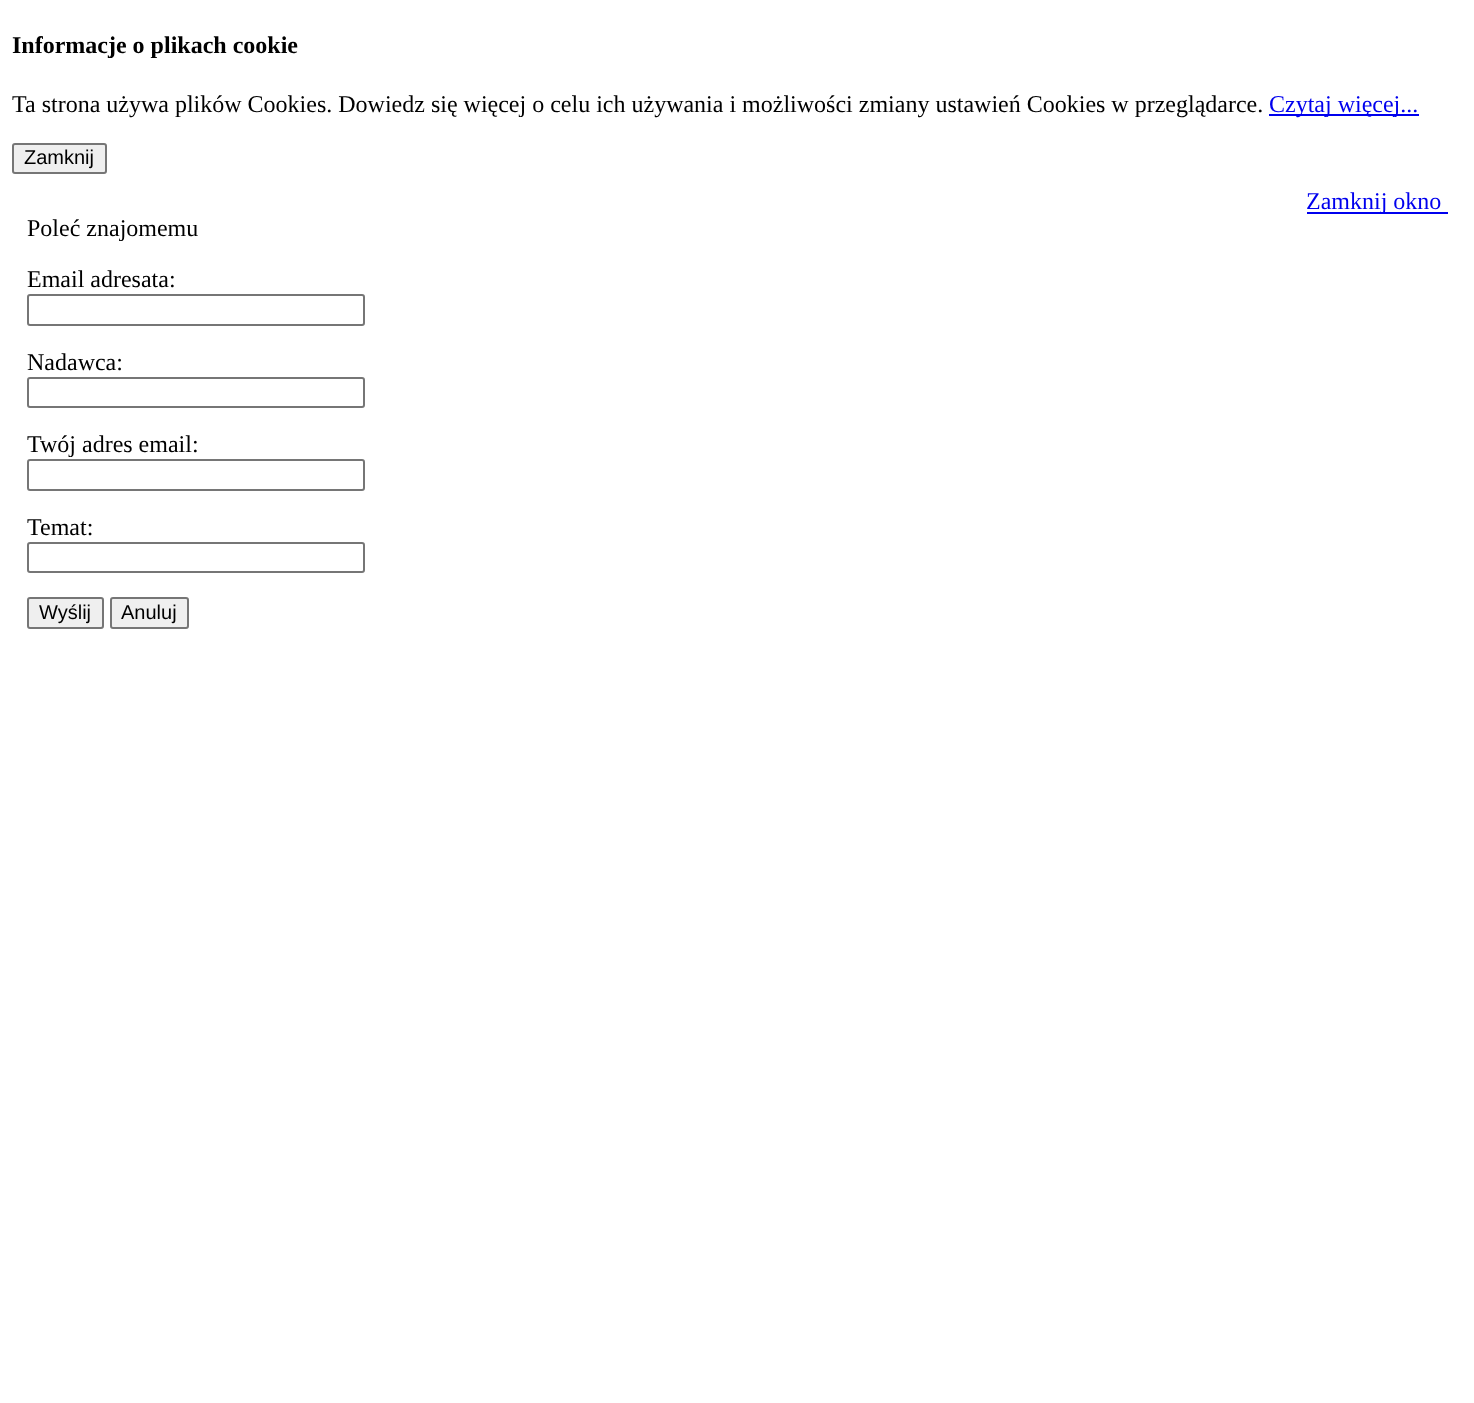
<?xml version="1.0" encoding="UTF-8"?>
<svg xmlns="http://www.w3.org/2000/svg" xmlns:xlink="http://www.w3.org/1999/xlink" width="1474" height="1403">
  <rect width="100%" height="100%" fill="#ffffff" />
  <rect x="1269" y="114" width="150" height="2" fill="#0000ee" />
  <rect x="13" y="144" width="93" height="29" rx="2" fill="#efefef" stroke="#767676" stroke-width="2" />
  <rect x="1307" y="212" width="141" height="2" fill="#0000ee" />
  <rect x="28" y="295" width="336" height="30" rx="2" fill="none" stroke="#767676" stroke-width="2" />
  <rect x="28" y="378" width="336" height="29" rx="2" fill="none" stroke="#767676" stroke-width="2" />
  <rect x="28" y="460" width="336" height="30" rx="2" fill="none" stroke="#767676" stroke-width="2" />
  <rect x="28" y="543" width="336" height="29" rx="2" fill="none" stroke="#767676" stroke-width="2" />
  <rect x="28" y="598" width="75" height="30" rx="2" fill="#efefef" stroke="#767676" stroke-width="2" />
  <rect x="111" y="598" width="77" height="30" rx="2" fill="#efefef" stroke="#767676" stroke-width="2" />
  <text x="12" y="53" style="font-family: Liberation Serif; font-size: 24px; font-weight: bold; fill: #000000">Informacje o plikach cookie</text>
  <text x="12" y="112" style="font-family: Liberation Serif; font-size: 24px; fill: #000000">Ta strona używa plików Cookies. Dowiedz się więcej o celu ich używania i możliwości zmiany ustawień Cookies w przeglądarce.</text>
  <text x="1269" y="112" style="font-family: Liberation Serif; font-size: 24px; fill: #0000ee">Czytaj więcej...</text>
  <text x="24" y="164" style="font-family: Liberation Sans; font-size: 20px; fill: #000000">Zamknij</text>
  <text x="1306" y="209" style="font-family: Liberation Serif; font-size: 24px; fill: #0000ee">Zamknij okno</text>
  <text x="27" y="236" style="font-family: Liberation Serif; font-size: 24px; fill: #000000">Poleć znajomemu</text>
  <text x="27" y="287" style="font-family: Liberation Serif; font-size: 24px; fill: #000000">Email adresata:</text>
  <text x="27" y="370" style="font-family: Liberation Serif; font-size: 24px; fill: #000000">Nadawca:</text>
  <text x="27" y="452" style="font-family: Liberation Serif; font-size: 24px; fill: #000000">Twój adres email:</text>
  <text x="27" y="535" style="font-family: Liberation Serif; font-size: 24px; fill: #000000">Temat:</text>
  <text x="39" y="619" style="font-family: Liberation Sans; font-size: 20px; fill: #000000">Wyślij</text>
  <text x="121" y="619" style="font-family: Liberation Sans; font-size: 20px; fill: #000000">Anuluj</text>
</svg>
